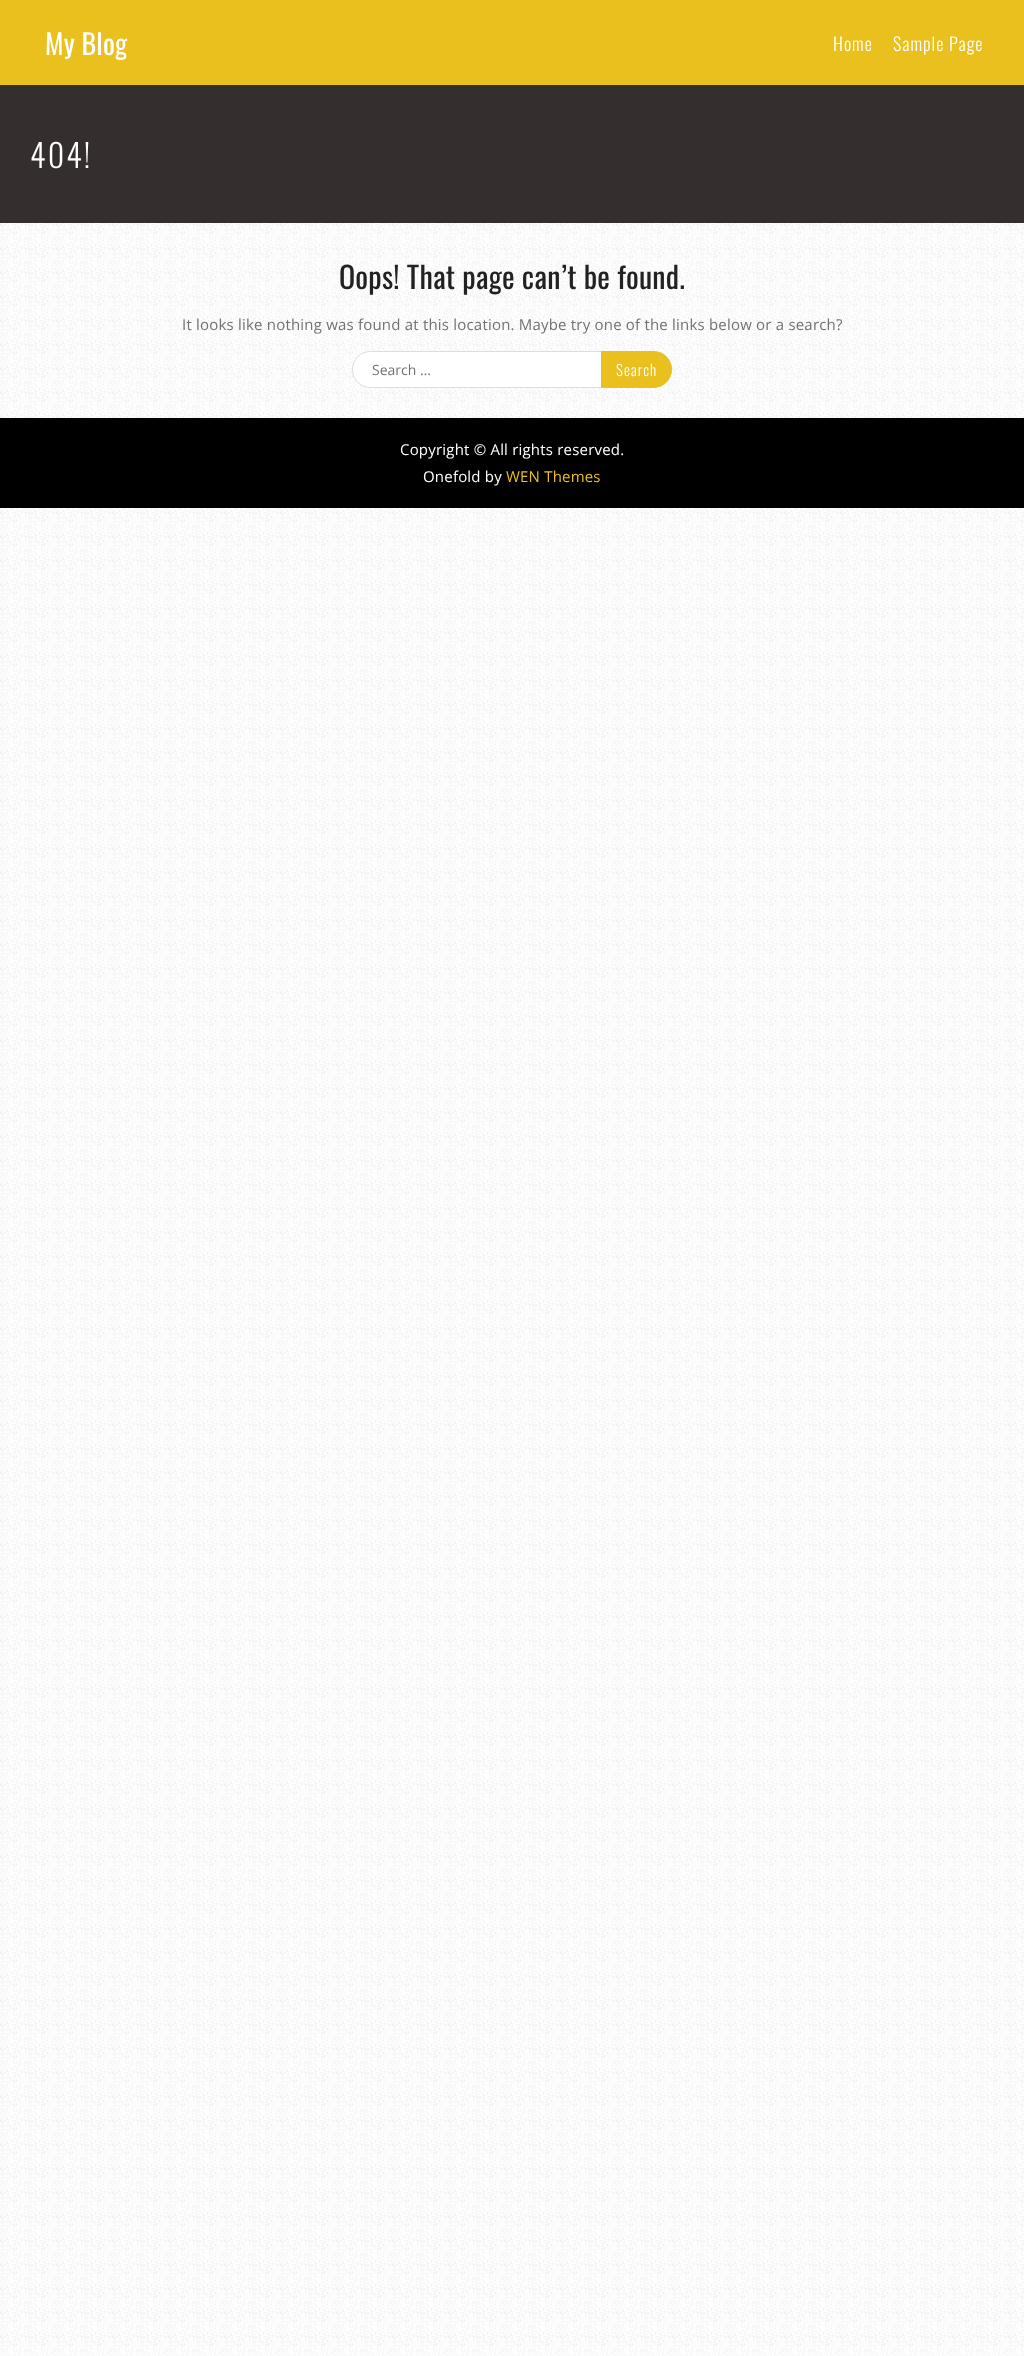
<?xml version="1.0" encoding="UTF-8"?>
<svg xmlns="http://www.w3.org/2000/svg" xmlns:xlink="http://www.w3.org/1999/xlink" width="1024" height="2356">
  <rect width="100%" height="100%" fill="#ffffff" />
  <image x="0" y="223" width="1024" height="2133" xlink:href="image1.png" />
  <rect width="1024" height="85" fill="#e9c01e" />
  <rect y="85" width="1024" height="138" fill="#352e2e" />
  <rect x="352.5" y="351.5" width="319" height="36" rx="18" fill="#ffffff" stroke="#dddddd" />
  <path d="M 601 351 h 52.5 c 10 0 18.5 8.5 18.5 18.5 c 0 10 -8.5 18.5 -18.5 18.5 h -52.5 z" fill="#e9c01e" />
  <rect y="418" width="1024" height="90" fill="#000000" />
  <text x="45" y="55" style="font-family: Oswald; font-size: 28px; letter-spacing: 0.2px; fill: #ffffff">My Blog</text>
  <text x="833" y="51" style="font-family: Oswald; font-size: 18px; font-weight: 300; letter-spacing: 1px; fill: #ffffff">Home</text>
  <text x="893" y="51" style="font-family: Oswald; font-size: 18px; font-weight: 300; letter-spacing: 1px; fill: #ffffff">Sample Page</text>
  <text x="30" y="168" style="font-family: Oswald; font-size: 32px; font-weight: 300; letter-spacing: 2px; fill: #ffffff">404!</text>
  <text x="339" y="289" style="font-family: Oswald; font-size: 30px; letter-spacing: 0.2px; fill: #222222">Oops! That page can’t be found.</text>
  <text x="182" y="330" style="font-family: Open Sans; font-size: 15px; letter-spacing: 0.2px; fill: #727272">It looks like nothing was found at this location. Maybe try one of the links below or a search?</text>
  <text x="372" y="375" style="font-family: Open Sans; font-size: 14px; fill: #727272">Search …</text>
  <text x="616" y="376" style="font-family: Oswald; font-size: 15px; font-weight: 300; letter-spacing: 1px; fill: #ffffff">Search</text>
  <text x="400" y="455" style="font-family: Open Sans; font-size: 15px; letter-spacing: 0.2px; fill: #ffffff">Copyright © All rights reserved.</text>
  <text x="423" y="482" style="font-family: Open Sans; font-size: 15px; letter-spacing: 0.2px; fill: #ffffff">Onefold by</text>
  <text x="506" y="482" style="font-family: Open Sans; font-size: 15px; letter-spacing: 0.2px; fill: #e9c01e">WEN Themes</text>
</svg>
